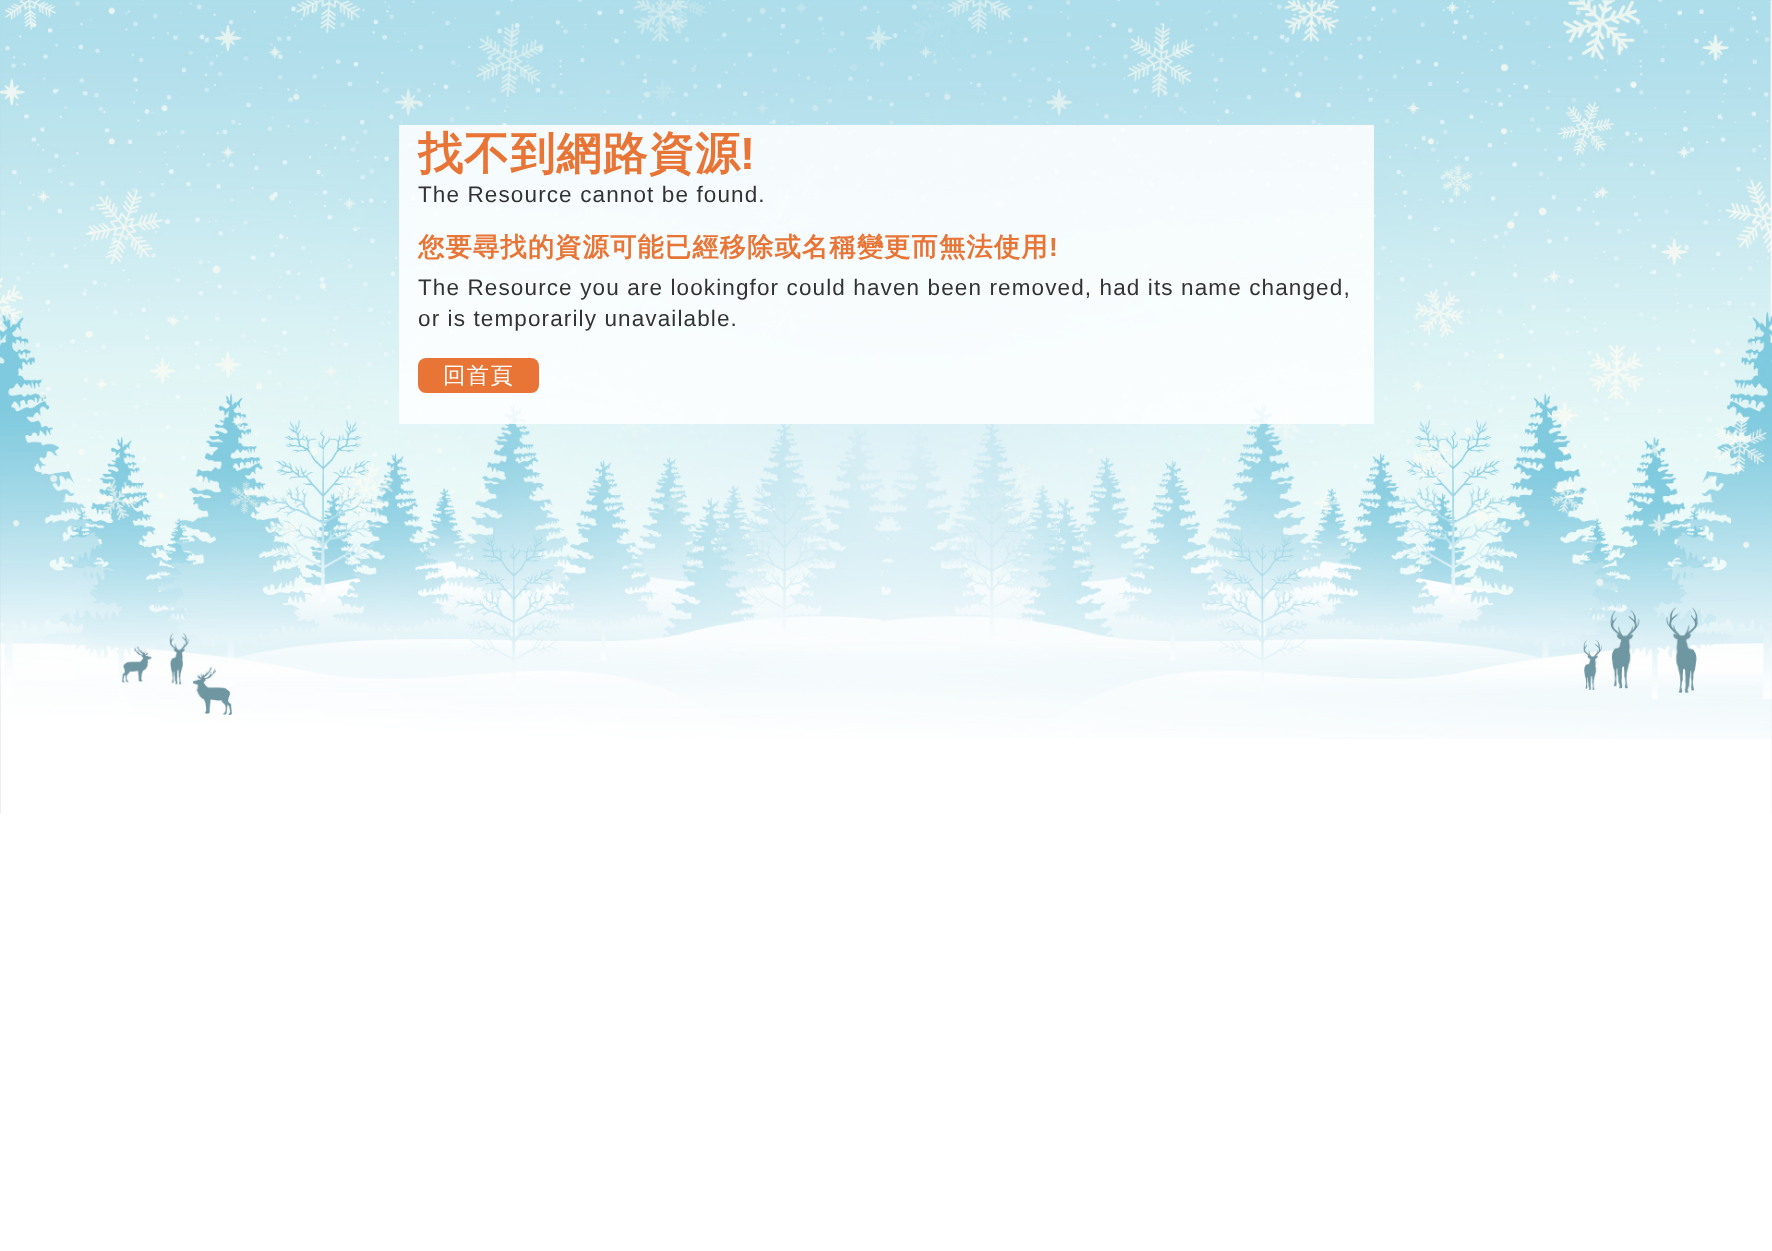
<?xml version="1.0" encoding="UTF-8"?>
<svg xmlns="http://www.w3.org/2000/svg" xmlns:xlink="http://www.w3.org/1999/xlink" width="1772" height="1251">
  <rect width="100%" height="100%" fill="#ffffff" />
  <image x="0" y="0" width="1772" height="814" xlink:href="image1.png" />
  <rect x="399" y="125" width="975" height="299" fill="#ffffff" fill-opacity="0.85" />
  <rect x="418" y="358" width="121" height="35" rx="8" fill="#e87536" />
  <text x="418" y="169" style="font-family: WenQuanYi Zen Hei; font-size: 45px; font-weight: bold; letter-spacing: 1.12px; fill: #e87536">找不到網路資源</text>
  <text x="740" y="169" style="font-family: Liberation Sans; font-size: 45px; font-weight: bold; letter-spacing: 1.12px; fill: #e87536">!</text>
  <text x="418" y="202" style="font-family: Liberation Sans; font-size: 22.5px; letter-spacing: 1.12px; fill: #333333">The Resource cannot be found.</text>
  <text x="418" y="256" style="font-family: WenQuanYi Zen Hei; font-size: 26.3px; font-weight: bold; letter-spacing: 1.12px; fill: #e87536">您要尋找的資源可能已經移除或名稱變更而無法使用</text>
  <text x="1049" y="256" style="font-family: Liberation Sans; font-size: 26.3px; font-weight: bold; letter-spacing: 1.12px; fill: #e87536">!</text>
  <text x="418" y="295" style="font-family: Liberation Sans; font-size: 22.5px; letter-spacing: 1.12px; fill: #333333">The Resource you are lookingfor could haven been removed, had its name changed,</text>
  <text x="418" y="326" style="font-family: Liberation Sans; font-size: 22.5px; letter-spacing: 1.12px; fill: #333333">or is temporarily unavailable.</text>
  <text x="443" y="383" style="font-family: WenQuanYi Zen Hei; font-size: 22.5px; font-weight: 500; letter-spacing: 1.12px; fill: #ffffff">回首頁</text>
</svg>
